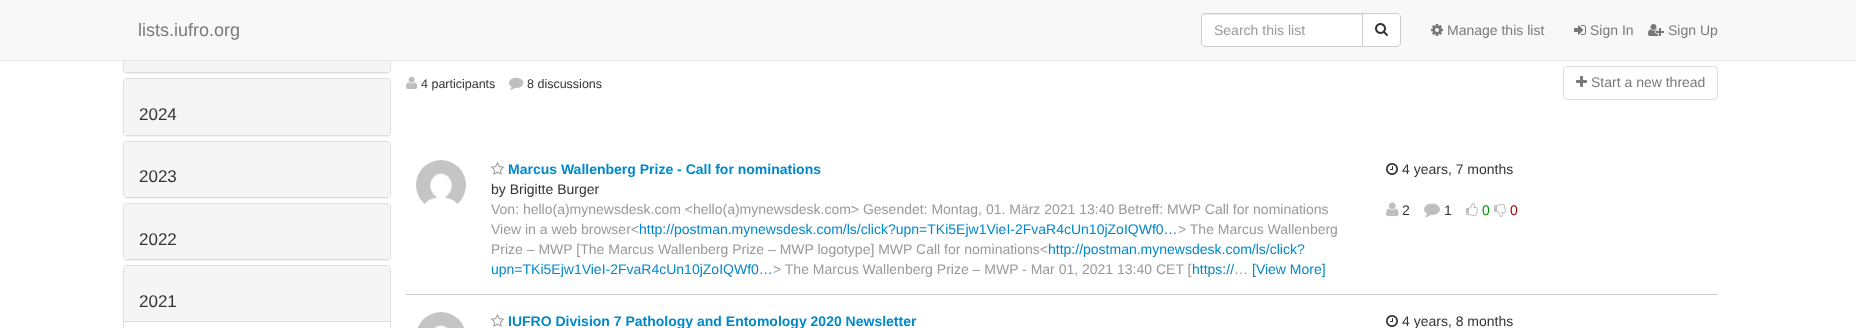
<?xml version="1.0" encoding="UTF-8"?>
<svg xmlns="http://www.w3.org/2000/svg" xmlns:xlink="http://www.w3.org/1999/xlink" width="1856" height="328">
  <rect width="100%" height="100%" fill="#ffffff" />
  <rect x="123" y="17" width="268" height="57" rx="4" fill="#000000" fill-opacity="0.05" filter="blur(0.5px)" />
  <rect x="123.5" y="16.5" width="267" height="56" rx="3.5" fill="none" stroke="#dddddd" />
  <rect width="1856" height="60" fill="#f8f8f8" />
  <rect y="60" width="1856" height="1" fill="#e7e7e7" />
  <path d="M 1205 13 h 158 v 34 h -158 c -2 0 -4 -2 -4 -4 v -26 c 0 -2 2 -4 4 -4 z" fill="#ffffff" />
  <path d="M 1205 15 h 157 v -1 h -158 c -2 0 -2 2 -2 4 c 0 -2 1 -3 3 -3 z" fill="#ececec" />
  <path d="M 1205 13.5 h 157.5 v 33 h -157.5 c -2 0 -3.5 -1.5 -3.5 -3.5 v -26 c 0 -2 1.5 -3.5 3.5 -3.5 z" fill="none" stroke="#cccccc" />
  <path d="M 1362.5 13.5 h 34.5 c 2 0 3.5 1.5 3.5 3.5 v 26 c 0 2 -1.5 3.5 -3.5 3.5 h -34.5 z" fill="#ffffff" stroke="#cccccc" />
  <image x="1375" y="23" width="13" height="13" xlink:href="image1.png" />
  <image x="1431" y="24" width="12" height="12" xlink:href="image2.png" />
  <image x="1574" y="25" width="12" height="10" xlink:href="image3.png" />
  <image x="1648" y="24" width="16" height="12" xlink:href="image4.png" />
  <rect x="124" y="61" width="266" height="11" fill="#f5f5f5" />
  <rect x="123" y="79" width="268" height="58" rx="4" fill="#000000" fill-opacity="0.05" filter="blur(0.5px)" />
  <rect x="123.5" y="78.5" width="267" height="57" rx="3.5" fill="none" stroke="#dddddd" />
  <path d="M 127 79 h 260 c 1.5 0 3 1.5 3 3 v 53 h -266 v -53 c 0 -1.5 1.5 -3 3 -3 z" fill="#f5f5f5" />
  <rect x="123" y="142" width="268" height="57" rx="4" fill="#000000" fill-opacity="0.05" filter="blur(0.5px)" />
  <rect x="123.5" y="141.5" width="267" height="56" rx="3.5" fill="none" stroke="#dddddd" />
  <path d="M 127 142 h 260 c 1.5 0 3 1.5 3 3 v 52 h -266 v -52 c 0 -1.5 1.5 -3 3 -3 z" fill="#f5f5f5" />
  <rect x="123" y="204" width="268" height="57" rx="4" fill="#000000" fill-opacity="0.05" filter="blur(0.5px)" />
  <rect x="123.5" y="203.5" width="267" height="56" rx="3.5" fill="none" stroke="#dddddd" />
  <path d="M 127 204 h 260 c 1.5 0 3 1.5 3 3 v 52 h -266 v -52 c 0 -1.5 1.5 -3 3 -3 z" fill="#f5f5f5" />
  <rect x="123.5" y="265.5" width="267" height="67" rx="3.5" fill="none" stroke="#dddddd" />
  <path d="M 127 266 h 260 c 1.5 0 3 1.5 3 3 v 52 h -266 v -52 c 0 -1.5 1.5 -3 3 -3 z" fill="#f5f5f5" />
  <rect x="124" y="321" width="266" height="1" fill="#dddddd" />
  <image x="406" y="76" width="12" height="13" xlink:href="image5.png" />
  <image x="509" y="77" width="15" height="13" xlink:href="image6.png" />
  <rect x="1563.5" y="66.5" width="154" height="33" rx="3.5" fill="none" stroke="#dedede" />
  <image x="1576" y="76" width="11" height="11" xlink:href="image7.png" />
  <rect x="406" y="294" width="1312" height="1" fill="#cccccc" />
  <image x="416" y="160" width="50" height="44" xlink:href="image8.png" />
  <image x="491" y="162" width="13" height="13" xlink:href="image9.png" />
  <image x="1386" y="163" width="12" height="12" xlink:href="image10.png" />
  <image x="1386" y="202" width="13" height="15" xlink:href="image11.png" />
  <image x="1424" y="203" width="16" height="15" xlink:href="image12.png" />
  <image x="1466" y="203" width="12" height="13" xlink:href="image13.png" />
  <image x="1494" y="204" width="12" height="13" xlink:href="image14.png" />
  <image x="417" y="312" width="48" height="16" xlink:href="image15.png" />
  <image x="491" y="314" width="13" height="13" xlink:href="image9.png" />
  <image x="1386" y="315" width="12" height="12" xlink:href="image10.png" />
  <text x="138" y="36" style="font-family: Liberation Sans; font-size: 18px; fill: #7a7a7a">lists.iufro.org</text>
  <text x="1214" y="35" style="font-family: Liberation Sans; font-size: 14px; fill: #999999">Search this list</text>
  <text x="1447" y="35" style="font-family: Liberation Sans; font-size: 14px; fill: #7a7a7a">Manage this list</text>
  <text x="1590" y="35" style="font-family: Liberation Sans; font-size: 14px; fill: #7a7a7a">Sign In</text>
  <text x="1668" y="35" style="font-family: Liberation Sans; font-size: 14px; fill: #7a7a7a">Sign Up</text>
  <text x="139" y="120" style="font-family: Liberation Sans; font-size: 17px; fill: #333333">2024</text>
  <text x="139" y="182" style="font-family: Liberation Sans; font-size: 17px; fill: #333333">2023</text>
  <text x="139" y="245" style="font-family: Liberation Sans; font-size: 17px; fill: #333333">2022</text>
  <text x="139" y="307" style="font-family: Liberation Sans; font-size: 17px; fill: #333333">2021</text>
  <text x="421" y="88" style="font-family: Liberation Sans; font-size: 12.5px; fill: #333333">4 participants</text>
  <text x="527" y="88" style="font-family: Liberation Sans; font-size: 12.5px; fill: #333333">8 discussions</text>
  <text x="1591" y="87" style="font-family: Liberation Sans; font-size: 14px; fill: #7a7a7a">Start a new thread</text>
  <text x="508" y="174" style="font-family: Liberation Sans; font-size: 14px; font-weight: bold; fill: #0088cc">Marcus Wallenberg Prize - Call for nominations</text>
  <text x="491" y="194" style="font-family: Liberation Sans; font-size: 14px; fill: #333333">by Brigitte Burger</text>
  <text x="491" y="214" style="font-family: Liberation Sans; font-size: 14px; fill: #999999">Von: hello(a)mynewsdesk.com &lt;hello(a)mynewsdesk.com&gt; Gesendet: Montag, 01. März 2021 13:40 Betreff: MWP Call for nominations</text>
  <text x="491" y="234" style="font-family: Liberation Sans; font-size: 14px; fill: #999999">View in a web browser&lt;</text>
  <text x="639" y="234" style="font-family: Liberation Sans; font-size: 14px; fill: #0088cc">http://postman.mynewsdesk.com/ls/click?upn=TKi5Ejw1VieI-2FvaR4cUn10jZoIQWf0…</text>
  <text x="1178" y="234" style="font-family: Liberation Sans; font-size: 14px; fill: #999999">&gt; The Marcus Wallenberg</text>
  <text x="491" y="254" style="font-family: Liberation Sans; font-size: 14px; fill: #999999">Prize – MWP [The Marcus Wallenberg Prize – MWP logotype] MWP Call for nominations&lt;</text>
  <text x="1048" y="254" style="font-family: Liberation Sans; font-size: 14px; fill: #0088cc">http://postman.mynewsdesk.com/ls/click?</text>
  <text x="491" y="274" style="font-family: Liberation Sans; font-size: 14px; fill: #0088cc">upn=TKi5Ejw1VieI-2FvaR4cUn10jZoIQWf0…</text>
  <text x="773" y="274" style="font-family: Liberation Sans; font-size: 14px; fill: #999999">&gt; The Marcus Wallenberg Prize – MWP - Mar 01, 2021 13:40 CET [</text>
  <text x="1192" y="274" style="font-family: Liberation Sans; font-size: 14px; fill: #0088cc">https://</text>
  <text x="1234" y="274" style="font-family: Liberation Sans; font-size: 14px; fill: #999999">…</text>
  <text x="1252" y="274" style="font-family: Liberation Sans; font-size: 14px; fill: #0088cc">[View More]</text>
  <text x="1402" y="174" style="font-family: Liberation Sans; font-size: 14px; fill: #333333">4 years, 7 months</text>
  <text x="1402" y="215" style="font-family: Liberation Sans; font-size: 14px; fill: #333333">2</text>
  <text x="1444" y="215" style="font-family: Liberation Sans; font-size: 14px; fill: #333333">1</text>
  <text x="1482" y="215" style="font-family: Liberation Sans; font-size: 14px; fill: #009900">0</text>
  <text x="1510" y="215" style="font-family: Liberation Sans; font-size: 14px; fill: #990000">0</text>
  <text x="508" y="326" style="font-family: Liberation Sans; font-size: 14px; font-weight: bold; fill: #0088cc">IUFRO Division 7 Pathology and Entomology 2020 Newsletter</text>
  <text x="1402" y="326" style="font-family: Liberation Sans; font-size: 14px; fill: #333333">4 years, 8 months</text>
</svg>
